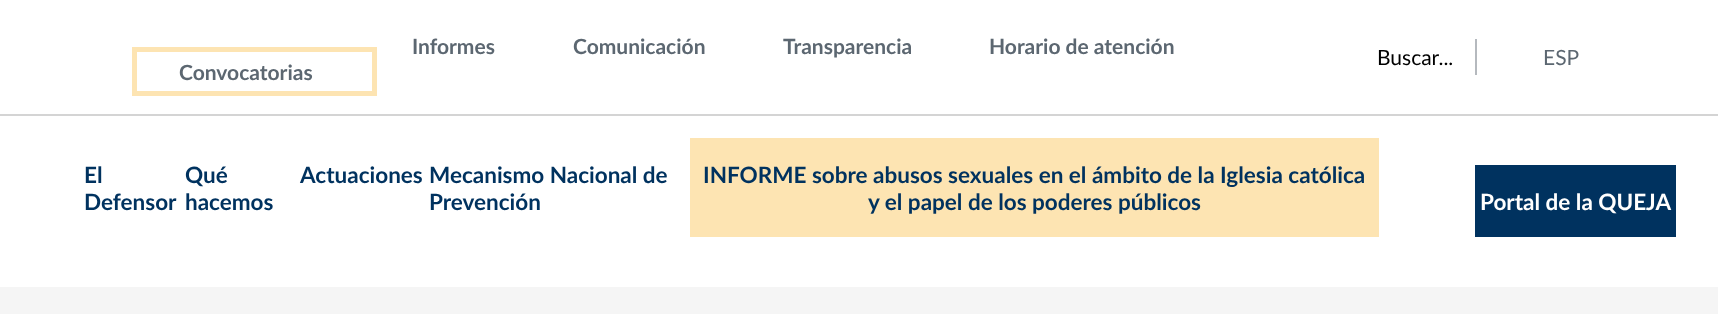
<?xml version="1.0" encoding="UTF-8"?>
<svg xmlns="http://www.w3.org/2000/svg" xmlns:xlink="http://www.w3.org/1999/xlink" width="1718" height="314">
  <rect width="100%" height="100%" fill="#ffffff" />
  <rect x="134.5" y="49.5" width="240" height="44" fill="none" stroke="#fde4b2" stroke-width="5" />
  <rect x="1475" y="39" width="2" height="36" fill="#b5b9be" />
  <rect y="114" width="1718" height="2" fill="#d4d4d4" />
  <rect x="690" y="138" width="689" height="99" fill="#fde4b2" />
  <rect x="1475" y="165" width="201" height="72" fill="#00325f" />
  <rect y="287" width="1718" height="27" fill="#f5f5f5" />
  <text x="412" y="54" style="font-family: Lato; font-size: 21px; font-weight: bold; fill: #5c6771">Informes</text>
  <text x="573" y="54" style="font-family: Lato; font-size: 21px; font-weight: bold; fill: #5c6771">Comunicación</text>
  <text x="783" y="54" style="font-family: Lato; font-size: 21px; font-weight: bold; fill: #5c6771">Transparencia</text>
  <text x="989" y="54" style="font-family: Lato; font-size: 21px; font-weight: bold; fill: #5c6771">Horario de atención</text>
  <text x="179" y="80" style="font-family: Lato; font-size: 21px; font-weight: bold; fill: #5c6771">Convocatorias</text>
  <text x="1377" y="65" style="font-family: Lato; font-size: 21px; fill: #000000">Buscar...</text>
  <text x="1543" y="65" style="font-family: Lato; font-size: 21px; fill: #5c6771">ESP</text>
  <text x="84" y="183" style="font-family: Lato; font-size: 22.5px; font-weight: bold; fill: #00325f">El</text>
  <text x="84" y="210" style="font-family: Lato; font-size: 22.5px; font-weight: bold; fill: #00325f">Defensor</text>
  <text x="185" y="183" style="font-family: Lato; font-size: 22.5px; font-weight: bold; fill: #00325f">Qué</text>
  <text x="185" y="210" style="font-family: Lato; font-size: 22.5px; font-weight: bold; fill: #00325f">hacemos</text>
  <text x="300" y="183" style="font-family: Lato; font-size: 22.5px; font-weight: bold; fill: #00325f">Actuaciones</text>
  <text x="429" y="183" style="font-family: Lato; font-size: 22.5px; font-weight: bold; fill: #00325f">Mecanismo Nacional de</text>
  <text x="429" y="210" style="font-family: Lato; font-size: 22.5px; font-weight: bold; fill: #00325f">Prevención</text>
  <text x="703" y="183" style="font-family: Lato; font-size: 22.5px; font-weight: bold; fill: #00325f">INFORME sobre abusos sexuales en el ámbito de la Iglesia católica</text>
  <text x="868" y="210" style="font-family: Lato; font-size: 22.5px; font-weight: bold; fill: #00325f">y el papel de los poderes públicos</text>
  <text x="1480" y="210" style="font-family: Lato; font-size: 22.5px; font-weight: bold; fill: #ffffff">Portal de la QUEJA</text>
</svg>
